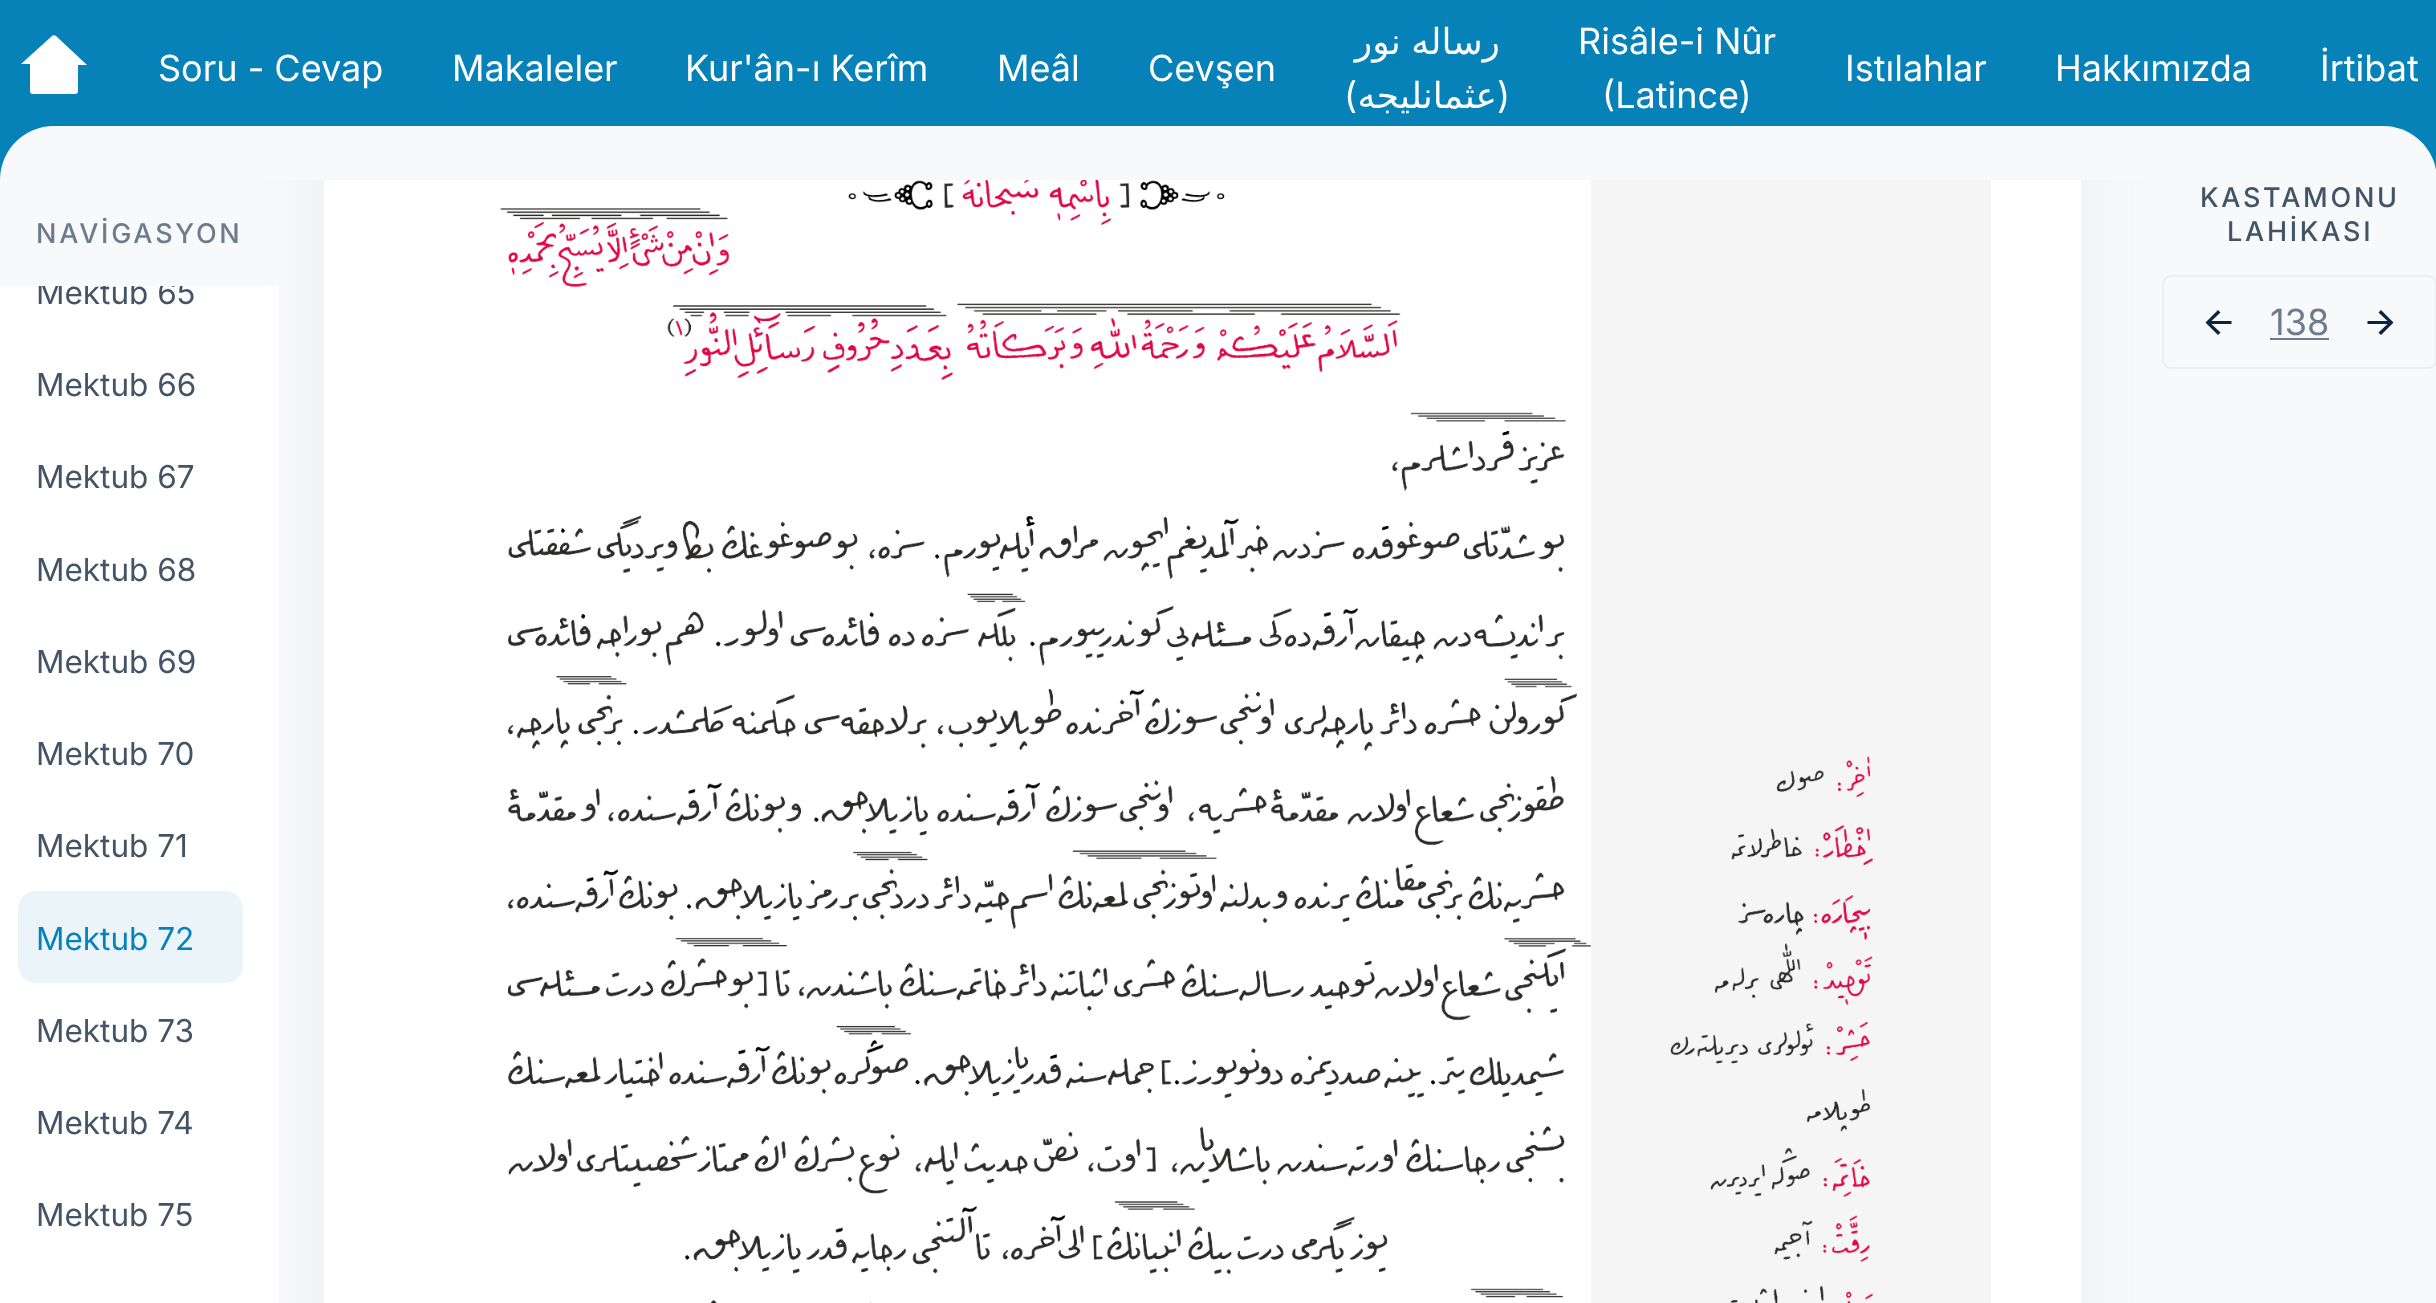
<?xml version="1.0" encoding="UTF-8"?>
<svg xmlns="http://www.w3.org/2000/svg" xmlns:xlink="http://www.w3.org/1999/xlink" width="2436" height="1303">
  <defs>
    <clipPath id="clip1"><rect y="286" width="279" height="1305" /></clipPath>
  </defs>
  <rect width="100%" height="100%" fill="#f8f9fb" />
  <rect x="324" y="-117" width="1757" height="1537" rx="9" fill="#ebeef3" filter="blur(36px)" />
  <rect width="2436" height="180" fill="#0682b9" />
  <path d="M 78 91 c 0 2 -1 3 -3 3 h -42 c -2 0 -3 -1 -3 -3 v -27 h -9 l 31 -28 c 1 -1 3 -1 4 0 l 31 29 h -9 v 27 z" fill="#ffffff" />
  <path d="M 54 126 h 2329 c 30 0 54 24 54 54 h -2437 c 0 -30 24 -54 54 -54 z" fill="#f8f9fb" />
  <rect y="286" width="279" height="1017" fill="#ffffff" />
  <rect x="18" y="891" width="225" height="92" rx="18" fill="#ebf5f9" />
  <rect x="324" y="180" width="1757" height="1123" fill="#ffffff" />
  <image x="500" y="180" width="1491" height="1123" xlink:href="image1.png" />
  <rect x="2163" y="276" width="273" height="92" rx="8" fill="none" stroke="#ebeef3" stroke-width="2" />
  <path d="M 2211.5 321 l 9 -8.5 l -2.5 -2.5 l -12.5 12.5 l 12.5 12.5 l 2.5 -2.5 l -9 -8.5 h 20 v -3 z" fill="#0a2540" fill-rule="evenodd" />
  <rect x="2270" y="338" width="59" height="2" fill="#6c7c8c" />
  <path d="M 2387.5 321 l -9 -8.5 l 2.5 -2.5 l 12.5 12.5 l -12.5 12.5 l -2.5 -2.5 l 9 -8.5 h -20 v -3 z" fill="#0a2540" fill-rule="evenodd" />
  <text x="158" y="81" style="font-family: Inter; font-size: 36px; fill: #ffffff">Soru - Cevap</text>
  <text x="452" y="81" style="font-family: Inter; font-size: 36px; fill: #ffffff">Makaleler</text>
  <text x="685" y="81" style="font-family: Inter; font-size: 36px; fill: #ffffff">Kur'ân-ı Kerîm</text>
  <text x="997" y="81" style="font-family: Inter; font-size: 36px; fill: #ffffff">Meâl</text>
  <text x="1148" y="81" style="font-family: Inter; font-size: 36px; fill: #ffffff">Cevşen</text>
  <text x="1500" y="54" word-spacing="-1" style="font-family: DejaVu Sans; font-size: 36px; direction: rtl; fill: #ffffff">رساله نور</text>
  <text x="1344" y="108" style="font-family: Inter; font-size: 36px; fill: #ffffff">(</text>
  <text x="1497" y="108" style="font-family: DejaVu Sans; font-size: 36px; direction: rtl; fill: #ffffff">عثمانلیجه</text>
  <text x="1497" y="108" style="font-family: Inter; font-size: 36px; fill: #ffffff">)</text>
  <text x="1578" y="54" style="font-family: Inter; font-size: 36px; fill: #ffffff">Risâle-i Nûr</text>
  <text x="1602" y="108" style="font-family: Inter; font-size: 36px; fill: #ffffff">(Latince)</text>
  <text x="1845" y="81" style="font-family: Inter; font-size: 36px; fill: #ffffff">Istılahlar</text>
  <text x="2055" y="81" style="font-family: Inter; font-size: 36px; fill: #ffffff">Hakkımızda</text>
  <text x="2320" y="81" style="font-family: Inter; font-size: 36px; fill: #ffffff">İrtibat</text>
  <text x="36" y="243" style="font-family: Inter; font-size: 27px; font-weight: 500; letter-spacing: 2.75px; fill: #6c7c8c">NAVİGASYON</text>
  <g clip-path="url(#clip1)">
    <text x="36" y="304" style="font-family: Inter; font-size: 31.5px; fill: #425466">Mektub 65</text>
  </g>
  <text x="36" y="396" style="font-family: Inter; font-size: 31.5px; fill: #425466">Mektub 66</text>
  <text x="36" y="488" style="font-family: Inter; font-size: 31.5px; fill: #425466">Mektub 67</text>
  <text x="36" y="581" style="font-family: Inter; font-size: 31.5px; fill: #425466">Mektub 68</text>
  <text x="36" y="673" style="font-family: Inter; font-size: 31.5px; fill: #425466">Mektub 69</text>
  <text x="36" y="765" style="font-family: Inter; font-size: 31.5px; fill: #425466">Mektub 70</text>
  <text x="36" y="857" style="font-family: Inter; font-size: 31.5px; fill: #425466">Mektub 71</text>
  <text x="36" y="950" style="font-family: Inter; font-size: 31.5px; fill: #0682b9">Mektub 72</text>
  <text x="36" y="1042" style="font-family: Inter; font-size: 31.5px; fill: #425466">Mektub 73</text>
  <text x="36" y="1134" style="font-family: Inter; font-size: 31.5px; fill: #425466">Mektub 74</text>
  <text x="36" y="1226" style="font-family: Inter; font-size: 31.5px; fill: #425466">Mektub 75</text>
  <text x="2200" y="207" style="font-family: Inter; font-size: 27px; font-weight: 500; letter-spacing: 2.75px; fill: #425466">KASTAMONU</text>
  <text x="2227" y="241" style="font-family: Inter; font-size: 27px; font-weight: 500; letter-spacing: 2.75px; fill: #425466">LAHİKASI</text>
  <text x="2270" y="335" style="font-family: Inter; font-size: 36px; fill: #6c7c8c">138</text>
</svg>
